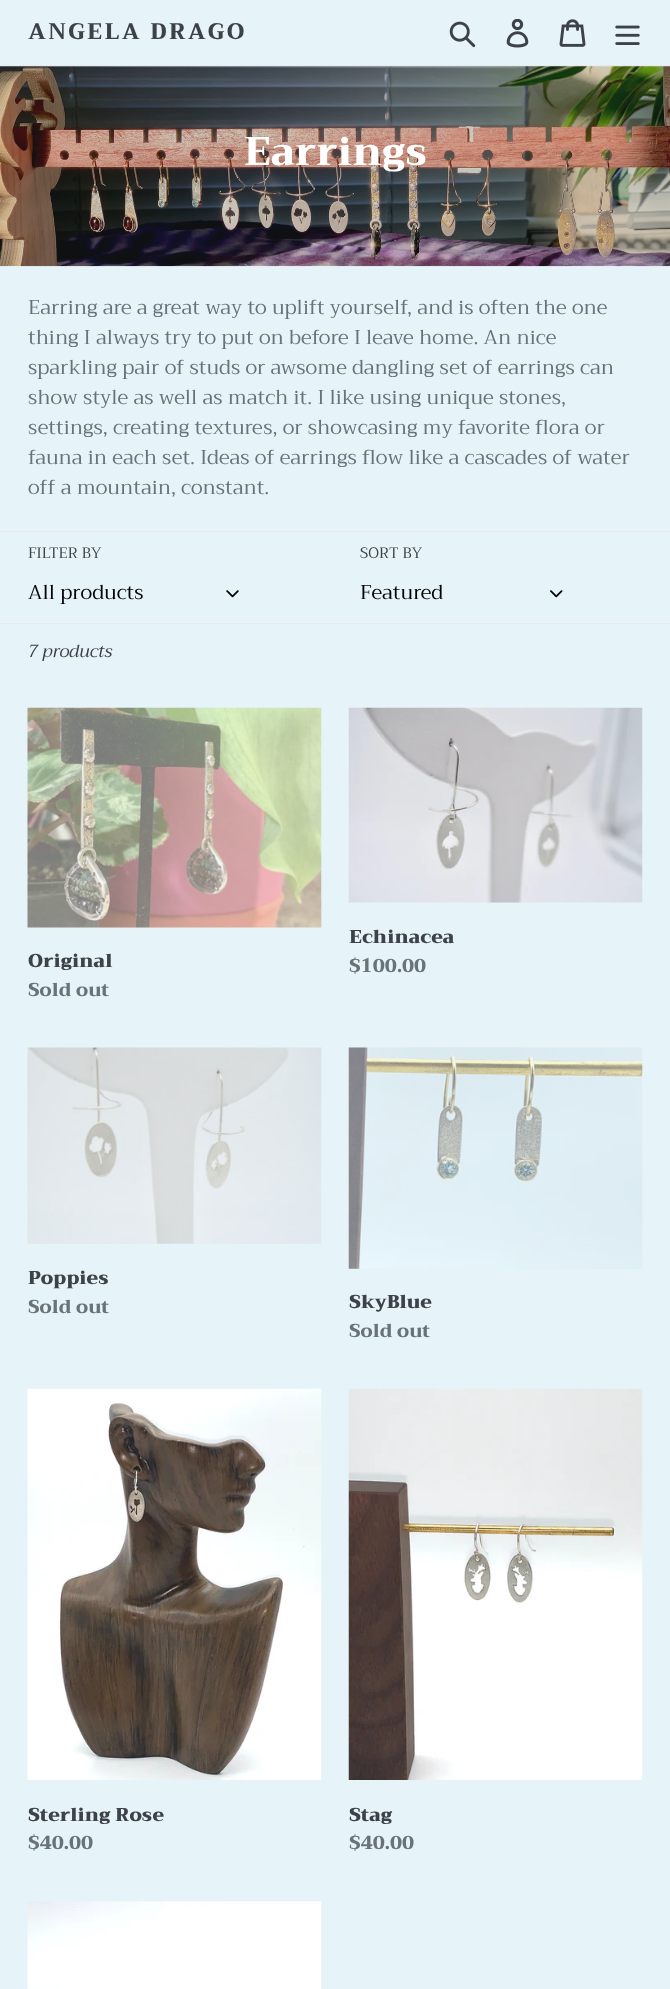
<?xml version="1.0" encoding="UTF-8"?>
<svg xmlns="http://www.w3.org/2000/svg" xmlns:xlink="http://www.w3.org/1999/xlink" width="670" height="1989">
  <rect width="100%" height="100%" fill="#e6f3f8" />
  <rect y="65" width="670" height="1" fill="#e8e9eb" />
  <image x="449" y="21" width="27" height="27" xlink:href="image1.png" />
  <image x="506" y="19" width="23" height="29" xlink:href="image2.png" />
  <image x="559" y="19" width="27" height="28" xlink:href="image3.png" />
  <image x="615" y="25" width="25" height="20" xlink:href="image4.png" />
  <image x="0" y="66" width="670" height="201" xlink:href="image5.png" />
  <rect y="531" width="670" height="1" fill="#e8e9eb" />
  <image x="226" y="590" width="13" height="8" xlink:href="image6.png" />
  <image x="550" y="590" width="13" height="8" xlink:href="image7.png" />
  <rect y="623" width="670" height="1" fill="#e8e9eb" />
  <image x="27" y="707" width="295" height="221" xlink:href="image8.png" />
  <image x="348" y="707" width="295" height="196" xlink:href="image9.png" />
  <image x="27" y="1047" width="295" height="197" xlink:href="image10.png" />
  <image x="348" y="1047" width="295" height="222" xlink:href="image11.png" />
  <image x="27" y="1388" width="295" height="392" xlink:href="image12.png" />
  <image x="348" y="1388" width="295" height="392" xlink:href="image13.png" />
  <image x="27" y="1901" width="295" height="88" xlink:href="image14.png" />
  <text x="28" y="39" style="font-family: Trirong; font-size: 22.5px; font-weight: 800; letter-spacing: 2.25px; fill: #3d4246">ANGELA DRAGO</text>
  <text x="244" y="165" style="font-family: Trirong; font-size: 40px; font-weight: 800; fill: #ffffff">Earrings</text>
  <text x="28" y="314" style="font-family: Trirong; font-size: 20px; fill: #69727b">Earring are a great way to uplift yourself, and is often the one</text>
  <text x="28" y="344" style="font-family: Trirong; font-size: 20px; fill: #69727b">thing I always try to put on before I leave home. An nice</text>
  <text x="28" y="374" style="font-family: Trirong; font-size: 20px; fill: #69727b">sparkling pair of studs or awsome dangling set of earrings can</text>
  <text x="28" y="404" style="font-family: Trirong; font-size: 20px; fill: #69727b">show style as well as match it. I like using unique stones,</text>
  <text x="28" y="434" style="font-family: Trirong; font-size: 20px; fill: #69727b">settings, creating textures, or showcasing my favorite flora or</text>
  <text x="28" y="464" style="font-family: Trirong; font-size: 20px; fill: #69727b">fauna in each set. Ideas of earrings flow like a cascades of water</text>
  <text x="28" y="494" style="font-family: Trirong; font-size: 20px; fill: #69727b">off a mountain, constant.</text>
  <text x="28" y="558" style="font-family: Trirong; font-size: 15px; fill: #3d4246">FILTER BY</text>
  <text x="28" y="599" style="font-family: Trirong; font-size: 20px; fill: #000000">All products</text>
  <text x="360" y="558" style="font-family: Trirong; font-size: 15px; fill: #3d4246">SORT BY</text>
  <text x="360" y="599" style="font-family: Trirong; font-size: 20px; fill: #000000">Featured</text>
  <text x="28" y="657" style="font-family: Trirong; font-size: 17.5px; font-style: italic; fill: #3d4246">7 products</text>
  <text x="28" y="967" style="font-family: Trirong; font-size: 18.75px; font-weight: 900; fill: #3d4246">Original</text>
  <text x="28" y="996" style="font-family: Trirong; font-size: 18.75px; font-weight: 800; fill: #69727b">Sold out</text>
  <text x="349" y="943" style="font-family: Trirong; font-size: 18.75px; font-weight: 900; fill: #3d4246">Echinacea</text>
  <text x="349" y="972" style="font-family: Trirong; font-size: 18.75px; font-weight: 800; fill: #69727b">$100.00</text>
  <text x="28" y="1284" style="font-family: Trirong; font-size: 18.75px; font-weight: 900; fill: #3d4246">Poppies</text>
  <text x="28" y="1313" style="font-family: Trirong; font-size: 18.75px; font-weight: 800; fill: #69727b">Sold out</text>
  <text x="349" y="1308" style="font-family: Trirong; font-size: 18.75px; font-weight: 900; fill: #3d4246">SkyBlue</text>
  <text x="349" y="1337" style="font-family: Trirong; font-size: 18.75px; font-weight: 800; fill: #69727b">Sold out</text>
  <text x="28" y="1821" style="font-family: Trirong; font-size: 18.75px; font-weight: 900; fill: #3d4246">Sterling Rose</text>
  <text x="28" y="1849" style="font-family: Trirong; font-size: 18.75px; font-weight: 800; fill: #69727b">$40.00</text>
  <text x="349" y="1821" style="font-family: Trirong; font-size: 18.75px; font-weight: 900; fill: #3d4246">Stag</text>
  <text x="349" y="1849" style="font-family: Trirong; font-size: 18.75px; font-weight: 800; fill: #69727b">$40.00</text>
</svg>
